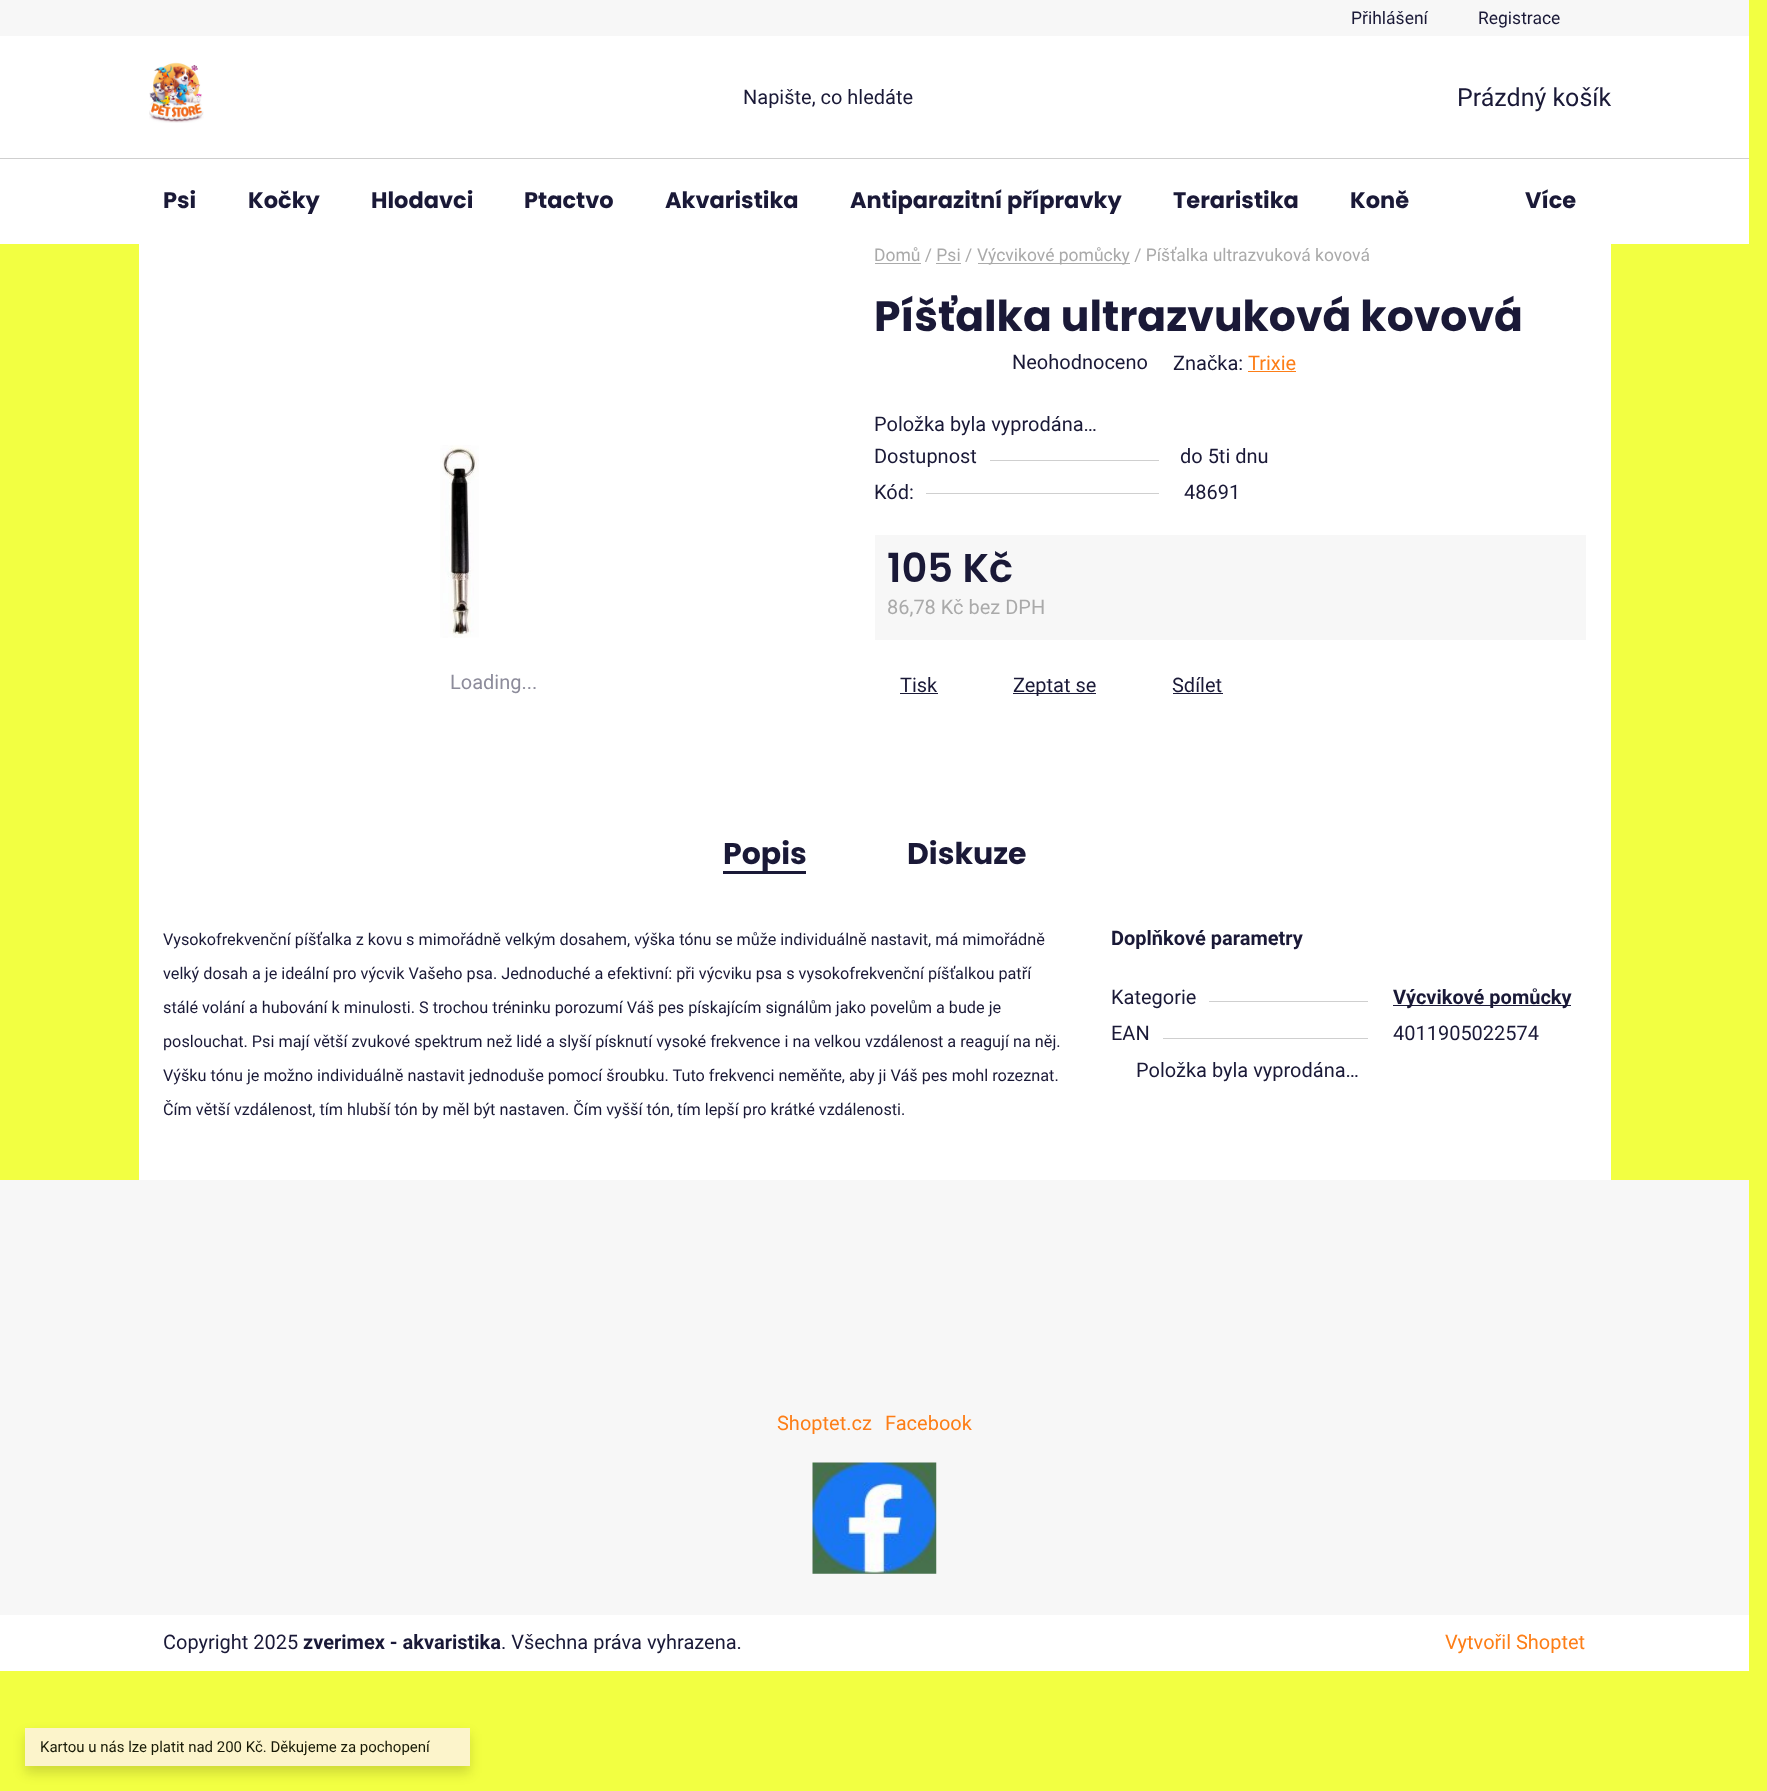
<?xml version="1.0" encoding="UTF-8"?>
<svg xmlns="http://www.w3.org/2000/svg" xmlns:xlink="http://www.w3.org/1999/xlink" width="1767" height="1791">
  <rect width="100%" height="100%" fill="#f2ff42" />
  <rect width="1749" height="36" fill="#f7f7f7" />
  <rect y="36" width="1749" height="208" fill="#ffffff" />
  <image x="149" y="62" width="55" height="61" xlink:href="image1.png" />
  <rect y="158" width="1749" height="1" fill="#cfcfcf" />
  <rect x="139" y="244" width="1472" height="936" fill="#ffffff" />
  <rect x="875" y="263" width="46" height="1" fill="#aaaaaa" />
  <rect x="978" y="263" width="152" height="1" fill="#aaaaaa" />
  <rect x="936" y="263" width="25" height="1" fill="#aaaaaa" />
  <image x="440" y="445" width="39" height="193" xlink:href="image2.png" />
  <rect x="1248" y="371" width="48" height="1" fill="#fd7e17" />
  <rect x="990" y="460" width="169" height="1" fill="#cfcfcf" />
  <rect x="926" y="493" width="233" height="1" fill="#cfcfcf" />
  <rect x="875" y="535" width="711" height="105" fill="#f7f7f7" />
  <rect x="900" y="693" width="38" height="1" fill="#1a1937" />
  <rect x="1013" y="693" width="83" height="1" fill="#1a1937" />
  <rect x="1173" y="693" width="50" height="1" fill="#1a1937" />
  <rect x="723" y="871" width="83" height="3" fill="#1a1937" />
  <rect x="1209" y="1001" width="159" height="1" fill="#cfcfcf" />
  <rect x="1393" y="1005" width="178" height="1" fill="#1a1937" />
  <rect x="1163" y="1038" width="205" height="1" fill="#cfcfcf" />
  <rect y="1180" width="1749" height="435" fill="#f7f7f7" />
  <image x="812" y="1462" width="125" height="112" xlink:href="image3.png" />
  <rect y="1615" width="1749" height="56" fill="#ffffff" />
  <rect x="25" y="1734" width="445" height="39" fill="#181a07" fill-opacity="0.16" filter="blur(6px)" />
  <rect x="25" y="1728" width="445" height="38" fill="#fcf4cb" />
  <text x="1351" y="24" style="font-family: Roboto; font-size: 17.5px; fill: #1a1937">Přihlášení</text>
  <text x="1478" y="24" style="font-family: Roboto; font-size: 17.5px; fill: #1a1937">Registrace</text>
  <text x="743" y="104" style="font-family: Roboto; font-size: 20px; fill: #1a1937">Napište, co hledáte</text>
  <text x="1457" y="106" style="font-family: Roboto; font-size: 25px; fill: #1a1937">Prázdný košík</text>
  <text x="163" y="208" style="font-family: Poppins; font-size: 22.5px; font-weight: bold; fill: #1a1937">Psi</text>
  <text x="248" y="208" style="font-family: Poppins; font-size: 22.5px; font-weight: bold; fill: #1a1937">Kočky</text>
  <text x="371" y="208" style="font-family: Poppins; font-size: 22.5px; font-weight: bold; fill: #1a1937">Hlodavci</text>
  <text x="524" y="208" style="font-family: Poppins; font-size: 22.5px; font-weight: bold; fill: #1a1937">Ptactvo</text>
  <text x="665" y="208" style="font-family: Poppins; font-size: 22.5px; font-weight: bold; fill: #1a1937">Akvaristika</text>
  <text x="850" y="208" style="font-family: Poppins; font-size: 22.5px; font-weight: bold; fill: #1a1937">Antiparazitní přípravky</text>
  <text x="1173" y="208" style="font-family: Poppins; font-size: 22.5px; font-weight: bold; fill: #1a1937">Teraristika</text>
  <text x="1350" y="208" style="font-family: Poppins; font-size: 22.5px; font-weight: bold; fill: #1a1937">Koně</text>
  <text x="1525" y="208" style="font-family: Poppins; font-size: 22.5px; font-weight: bold; fill: #1a1937">Více</text>
  <text x="874" y="261" style="font-family: Roboto; font-size: 17.5px; fill: #aaaaaa">Domů / Psi /</text>
  <text x="977" y="261" style="font-family: Roboto; font-size: 17.5px; fill: #aaaaaa">Výcvikové pomůcky / Píšťalka ultrazvuková kovová</text>
  <text x="450" y="689" style="font-family: Roboto; font-size: 20px; fill: #8d8c9b">Loading...</text>
  <text x="874" y="331" style="font-family: Poppins; font-size: 42.5px; font-weight: bold; fill: #1a1937">Píšťalka ultrazvuková kovová</text>
  <text x="1012" y="369" style="font-family: Roboto; font-size: 20px; fill: #1a1937">Neohodnoceno</text>
  <text x="1173" y="370" style="font-family: Roboto; font-size: 20px; fill: #1a1937">Značka:</text>
  <text x="1248" y="370" style="font-family: Roboto; font-size: 20px; fill: #fd7e17">Trixie</text>
  <text x="874" y="431" style="font-family: Roboto; font-size: 20px; fill: #1a1937">Položka byla vyprodána…</text>
  <text x="874" y="463" style="font-family: Roboto; font-size: 20px; fill: #1a1937">Dostupnost</text>
  <text x="1180" y="463" style="font-family: Roboto; font-size: 20px; fill: #1a1937">do 5ti dnu</text>
  <text x="874" y="499" style="font-family: Roboto; font-size: 20px; fill: #1a1937">Kód:</text>
  <text x="1184" y="499" style="font-family: Roboto; font-size: 20px; fill: #1a1937">48691</text>
  <text x="887" y="582" style="font-family: Poppins; font-size: 40px; font-weight: 600; fill: #1a1937">105 Kč</text>
  <text x="887" y="614" style="font-family: Roboto; font-size: 20px; fill: #aaaaaa">86,78 Kč bez DPH</text>
  <text x="900" y="692" style="font-family: Roboto; font-size: 20px; fill: #1a1937">Tisk</text>
  <text x="1013" y="692" style="font-family: Roboto; font-size: 20px; fill: #1a1937">Zeptat se</text>
  <text x="1172" y="692" style="font-family: Roboto; font-size: 20px; fill: #1a1937">Sdílet</text>
  <text x="723" y="864" style="font-family: Poppins; font-size: 30px; font-weight: bold; fill: #1a1937">Popis</text>
  <text x="907" y="864" style="font-family: Poppins; font-size: 30px; font-weight: bold; fill: #1a1937">Diskuze</text>
  <text x="163" y="945" style="font-family: Roboto; font-size: 16.25px; fill: #1a1937">Vysokofrekvenční píšťalka z kovu s mimořádně velkým dosahem, výška tónu se může individuálně nastavit, má mimořádně</text>
  <text x="163" y="979" style="font-family: Roboto; font-size: 16.25px; fill: #1a1937">velký dosah a je ideální pro výcvik Vašeho psa. Jednoduché a efektivní: při výcviku psa s vysokofrekvenční píšťalkou patří</text>
  <text x="163" y="1013" style="font-family: Roboto; font-size: 16.25px; fill: #1a1937">stálé volání a hubování k minulosti. S trochou tréninku porozumí Váš pes pískajícím signálům jako povelům a bude je</text>
  <text x="163" y="1047" style="font-family: Roboto; font-size: 16.25px; fill: #1a1937">poslouchat. Psi mají větší zvukové spektrum než lidé a slyší písknutí vysoké frekvence i na velkou vzdálenost a reagují na něj.</text>
  <text x="163" y="1081" style="font-family: Roboto; font-size: 16.25px; fill: #1a1937">Výšku tónu je možno individuálně nastavit jednoduše pomocí šroubku. Tuto frekvenci neměňte, aby ji Váš pes mohl rozeznat.</text>
  <text x="163" y="1115" style="font-family: Roboto; font-size: 16.25px; fill: #1a1937">Čím větší vzdálenost, tím hlubší tón by měl být nastaven. Čím vyšší tón, tím lepší pro krátké vzdálenosti.</text>
  <text x="1111" y="945" style="font-family: Roboto; font-size: 20px; font-weight: bold; fill: #1a1937">Doplňkové parametry</text>
  <text x="1111" y="1004" style="font-family: Roboto; font-size: 20px; fill: #1a1937">Kategorie</text>
  <text x="1393" y="1004" style="font-family: Roboto; font-size: 20px; font-weight: bold; fill: #1a1937">Výcvikové pomůcky</text>
  <text x="1111" y="1040" style="font-family: Roboto; font-size: 20px; fill: #1a1937">EAN</text>
  <text x="1393" y="1040" style="font-family: Roboto; font-size: 20px; fill: #1a1937">4011905022574</text>
  <text x="1136" y="1077" style="font-family: Roboto; font-size: 20px; fill: #1a1937">Položka byla vyprodána…</text>
  <text x="777" y="1430" style="font-family: Roboto; font-size: 20px; fill: #fd7e17">Shoptet.cz</text>
  <text x="885" y="1430" style="font-family: Roboto; font-size: 20px; fill: #fd7e17">Facebook</text>
  <text x="163" y="1649" style="font-family: Roboto; font-size: 20px; fill: #1a1937">Copyright 2025</text>
  <text x="303" y="1649" style="font-family: Roboto; font-size: 20px; font-weight: bold; fill: #1a1937">zverimex - akvaristika</text>
  <text x="501" y="1649" style="font-family: Roboto; font-size: 20px; fill: #1a1937">. Všechna práva vyhrazena.</text>
  <text x="1445" y="1649" style="font-family: Roboto; font-size: 20px; fill: #fd7e17">Vytvořil Shoptet</text>
  <text x="40" y="1752" style="font-family: Roboto; font-size: 15px; fill: #181a07">Kartou u nás lze platit nad 200 Kč. Děkujeme za pochopení</text>
</svg>
